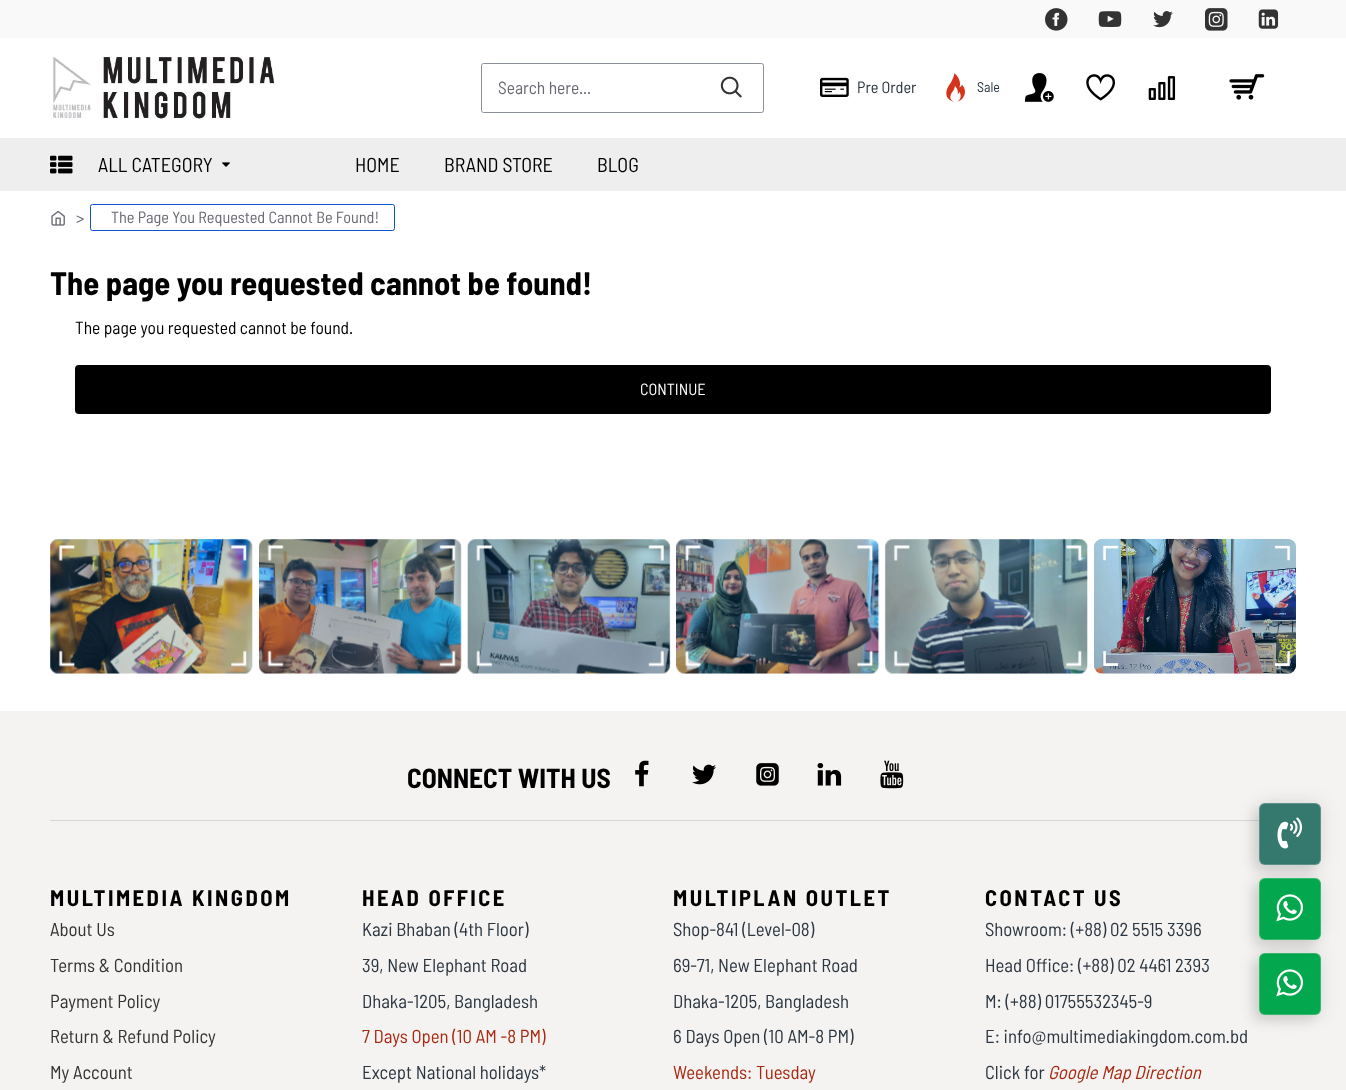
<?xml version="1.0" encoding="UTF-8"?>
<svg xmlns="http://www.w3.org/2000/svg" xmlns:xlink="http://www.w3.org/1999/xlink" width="1346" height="1090">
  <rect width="100%" height="100%" fill="#ffffff" />
  <rect width="1346" height="38" fill="#f9f9f9" />
  <image x="1045" y="8" width="23" height="23" xlink:href="image1.png" />
  <image x="1098" y="11" width="24" height="16" xlink:href="image2.png" />
  <image x="1153" y="11" width="20" height="17" xlink:href="image3.png" />
  <image x="1205" y="8" width="23" height="23" xlink:href="image4.png" />
  <image x="1258" y="9" width="21" height="20" xlink:href="image5.png" />
  <image x="52" y="55" width="223" height="64" xlink:href="image6.png" />
  <rect x="481.5" y="63.5" width="282" height="49" rx="2" fill="none" stroke="#8b9198" />
  <path d="M 700 64 h 60.5 c 1.5 0 2.5 1 2.5 2.5 v 42 c 0 1.5 -1 2.5 -2.5 2.5 h -60.5 z" fill="#ffffff" />
  <image x="720" y="76" width="22" height="22" xlink:href="image7.png" />
  <image x="820" y="77" width="29" height="20" xlink:href="image8.png" />
  <image x="946" y="73" width="19" height="29" xlink:href="image9.png" />
  <image x="1025" y="73" width="29" height="29" xlink:href="image10.png" />
  <image x="1086" y="74" width="29" height="27" xlink:href="image11.png" />
  <image x="1148" y="76" width="28" height="24" xlink:href="image12.png" />
  <image x="1229" y="74" width="36" height="26" xlink:href="image13.png" />
  <rect y="138" width="1346" height="53" fill="#eeeeee" />
  <image x="50" y="155" width="23" height="19" xlink:href="image14.png" />
  <image x="222" y="162" width="8" height="5" xlink:href="image15.png" />
  <image x="51" y="210" width="14" height="16" xlink:href="image16.png" />
  <rect x="90.5" y="204.5" width="304" height="26" rx="2" fill="none" stroke="#0d52d6" />
  <rect x="75" y="365" width="1196" height="49" rx="4" fill="#000000" />
  <image x="50" y="539" width="203" height="135" xlink:href="image17.png" />
  <image x="259" y="539" width="203" height="135" xlink:href="image18.png" />
  <image x="467" y="539" width="204" height="135" xlink:href="image19.png" />
  <image x="676" y="539" width="204" height="135" xlink:href="image20.png" />
  <image x="884" y="539" width="204" height="135" xlink:href="image21.png" />
  <image x="1094" y="538" width="202" height="136" xlink:href="image22.png" />
  <rect y="711" width="1346" height="379" fill="#f4f3f1" />
  <rect x="50" y="820" width="1209" height="1" fill="#d7d7d7" />
  <image x="635" y="760" width="14" height="27" xlink:href="image23.png" />
  <image x="692" y="764" width="24" height="21" xlink:href="image24.png" />
  <image x="756" y="763" width="23" height="23" xlink:href="image25.png" />
  <image x="817" y="763" width="25" height="23" xlink:href="image26.png" />
  <image x="880" y="760" width="24" height="29" xlink:href="image27.png" />
  <rect x="1253" y="809" width="62" height="62" rx="6" fill="#000000" fill-opacity="0.1" filter="blur(6px)" />
  <rect x="1259" y="803" width="62" height="62" rx="6" fill="#000000" fill-opacity="0.1" filter="blur(9.5px)" />
  <rect x="1259" y="803" width="62" height="62" rx="6" fill="#35786e" />
  <rect x="1259.5" y="803.5" width="61" height="61" rx="5.5" fill="none" stroke="#ffffff" stroke-opacity="0.2" />
  <image x="1277" y="817" width="26" height="32" xlink:href="image28.png" />
  <rect x="1253" y="959" width="62" height="62" rx="6" fill="#000000" fill-opacity="0.1" filter="blur(6px)" />
  <rect x="1259" y="953" width="62" height="62" rx="6" fill="#000000" fill-opacity="0.1" filter="blur(9.5px)" />
  <rect x="1259" y="953" width="62" height="62" rx="6" fill="#03a84e" />
  <rect x="1259.5" y="953.5" width="61" height="61" rx="5.5" fill="none" stroke="#ffffff" stroke-opacity="0.2" />
  <rect x="1253" y="884" width="62" height="62" rx="6" fill="#000000" fill-opacity="0.1" filter="blur(6px)" />
  <image x="1276" y="969" width="27" height="28" xlink:href="image29.png" />
  <rect x="1259" y="878" width="62" height="62" rx="6" fill="#000000" fill-opacity="0.1" filter="blur(9.5px)" />
  <rect x="1259" y="878" width="62" height="62" rx="6" fill="#03a84e" />
  <rect x="1259.5" y="878.5" width="61" height="61" rx="5.5" fill="none" stroke="#ffffff" stroke-opacity="0.2" />
  <image x="1276" y="894" width="27" height="28" xlink:href="image29.png" />
  <text x="498" y="94" style="font-family: Barlow Semi Condensed; font-size: 17.5px; fill: #696973">Search here...</text>
  <text x="857" y="93" style="font-family: Barlow Semi Condensed; font-size: 16.25px; fill: #2c3640">Pre Order</text>
  <text x="977" y="92" style="font-family: Barlow Semi Condensed; font-size: 14px; fill: #2c3640">Sale</text>
  <text x="98" y="172" style="font-family: Barlow Semi Condensed; font-size: 20px; fill: #000000">ALL CATEGORY</text>
  <text x="355" y="172" style="font-family: Barlow Semi Condensed; font-size: 20px; fill: #000000">HOME</text>
  <text x="444" y="172" style="font-family: Barlow Semi Condensed; font-size: 20px; fill: #000000">BRAND STORE</text>
  <text x="597" y="172" style="font-family: Barlow Semi Condensed; font-size: 20px; fill: #000000">BLOG</text>
  <text x="76" y="224" style="font-family: Barlow Semi Condensed; font-size: 17.5px; fill: #696973">&gt;</text>
  <text x="111" y="223" style="font-family: Barlow Semi Condensed; font-size: 16.25px; fill: #696973">The Page You Requested Cannot Be Found!</text>
  <text x="50" y="295" style="font-family: Barlow Semi Condensed; font-size: 32.5px; font-weight: bold; fill: #000000">The page you requested cannot be found!</text>
  <text x="75" y="334" style="font-family: Barlow Semi Condensed; font-size: 17.5px; fill: #000000">The page you requested cannot be found.</text>
  <text x="640" y="395" style="font-family: Barlow Semi Condensed; font-size: 16.25px; fill: #ffffff">CONTINUE</text>
  <text x="407" y="788" style="font-family: Barlow Semi Condensed; font-size: 27.5px; font-weight: bold; fill: #000000">CONNECT WITH US</text>
  <text x="50" y="906" style="font-family: Barlow Semi Condensed; font-size: 22.5px; font-weight: bold; letter-spacing: 2.5px; fill: #000000">MULTIMEDIA KINGDOM</text>
  <text x="50" y="936" style="font-family: Barlow Semi Condensed; font-size: 18.75px; fill: #333333">About Us</text>
  <text x="50" y="972" style="font-family: Barlow Semi Condensed; font-size: 18.75px; fill: #333333">Terms &amp; Condition</text>
  <text x="50" y="1008" style="font-family: Barlow Semi Condensed; font-size: 18.75px; fill: #333333">Payment Policy</text>
  <text x="50" y="1043" style="font-family: Barlow Semi Condensed; font-size: 18.75px; fill: #333333">Return &amp; Refund Policy</text>
  <text x="50" y="1079" style="font-family: Barlow Semi Condensed; font-size: 18.75px; fill: #333333">My Account</text>
  <text x="362" y="906" style="font-family: Barlow Semi Condensed; font-size: 22.5px; font-weight: bold; letter-spacing: 2.5px; fill: #000000">HEAD OFFICE</text>
  <text x="362" y="936" style="font-family: Barlow Semi Condensed; font-size: 18.75px; fill: #2c3640">Kazi Bhaban (4th Floor)</text>
  <text x="362" y="972" style="font-family: Barlow Semi Condensed; font-size: 18.75px; fill: #2c3640">39, New Elephant Road</text>
  <text x="362" y="1008" style="font-family: Barlow Semi Condensed; font-size: 18.75px; fill: #2c3640">Dhaka-1205, Bangladesh</text>
  <text x="362" y="1043" style="font-family: Barlow Semi Condensed; font-size: 18.75px; fill: #a72911">7 Days Open (10 AM -8 PM)</text>
  <text x="362" y="1079" style="font-family: Barlow Semi Condensed; font-size: 18.75px; fill: #2c3640">Except National holidays*</text>
  <text x="673" y="906" style="font-family: Barlow Semi Condensed; font-size: 22.5px; font-weight: bold; letter-spacing: 2.5px; fill: #000000">MULTIPLAN OUTLET</text>
  <text x="673" y="936" style="font-family: Barlow Semi Condensed; font-size: 18.75px; fill: #2c3640">Shop-841 (Level-08)</text>
  <text x="673" y="972" style="font-family: Barlow Semi Condensed; font-size: 18.75px; fill: #2c3640">69-71, New Elephant Road</text>
  <text x="673" y="1008" style="font-family: Barlow Semi Condensed; font-size: 18.75px; fill: #2c3640">Dhaka-1205, Bangladesh</text>
  <text x="673" y="1043" style="font-family: Barlow Semi Condensed; font-size: 18.75px; fill: #2c3640">6 Days Open (10 AM-8 PM)</text>
  <text x="673" y="1079" style="font-family: Barlow Semi Condensed; font-size: 18.75px; fill: #a72911">Weekends: Tuesday</text>
  <text x="985" y="906" style="font-family: Barlow Semi Condensed; font-size: 22.5px; font-weight: bold; letter-spacing: 2.5px; fill: #000000">CONTACT US</text>
  <text x="985" y="936" style="font-family: Barlow Semi Condensed; font-size: 18.75px; fill: #2c3640">Showroom: (+88) 02 5515 3396</text>
  <text x="985" y="972" style="font-family: Barlow Semi Condensed; font-size: 18.75px; fill: #2c3640">Head Office: (+88) 02 4461 2393</text>
  <text x="985" y="1008" style="font-family: Barlow Semi Condensed; font-size: 18.75px; fill: #2c3640">M: (+88) 01755532345-9</text>
  <text x="985" y="1043" style="font-family: Barlow Semi Condensed; font-size: 18.75px; fill: #2c3640">E: info@multimediakingdom.com.bd</text>
  <text x="985" y="1079" style="font-family: Barlow Semi Condensed; font-size: 18.75px; fill: #2c3640">Click for</text>
  <text x="1048" y="1079" style="font-family: Barlow Semi Condensed; font-size: 18.75px; font-style: italic; fill: #a72911">Google Map Direction</text>
</svg>
